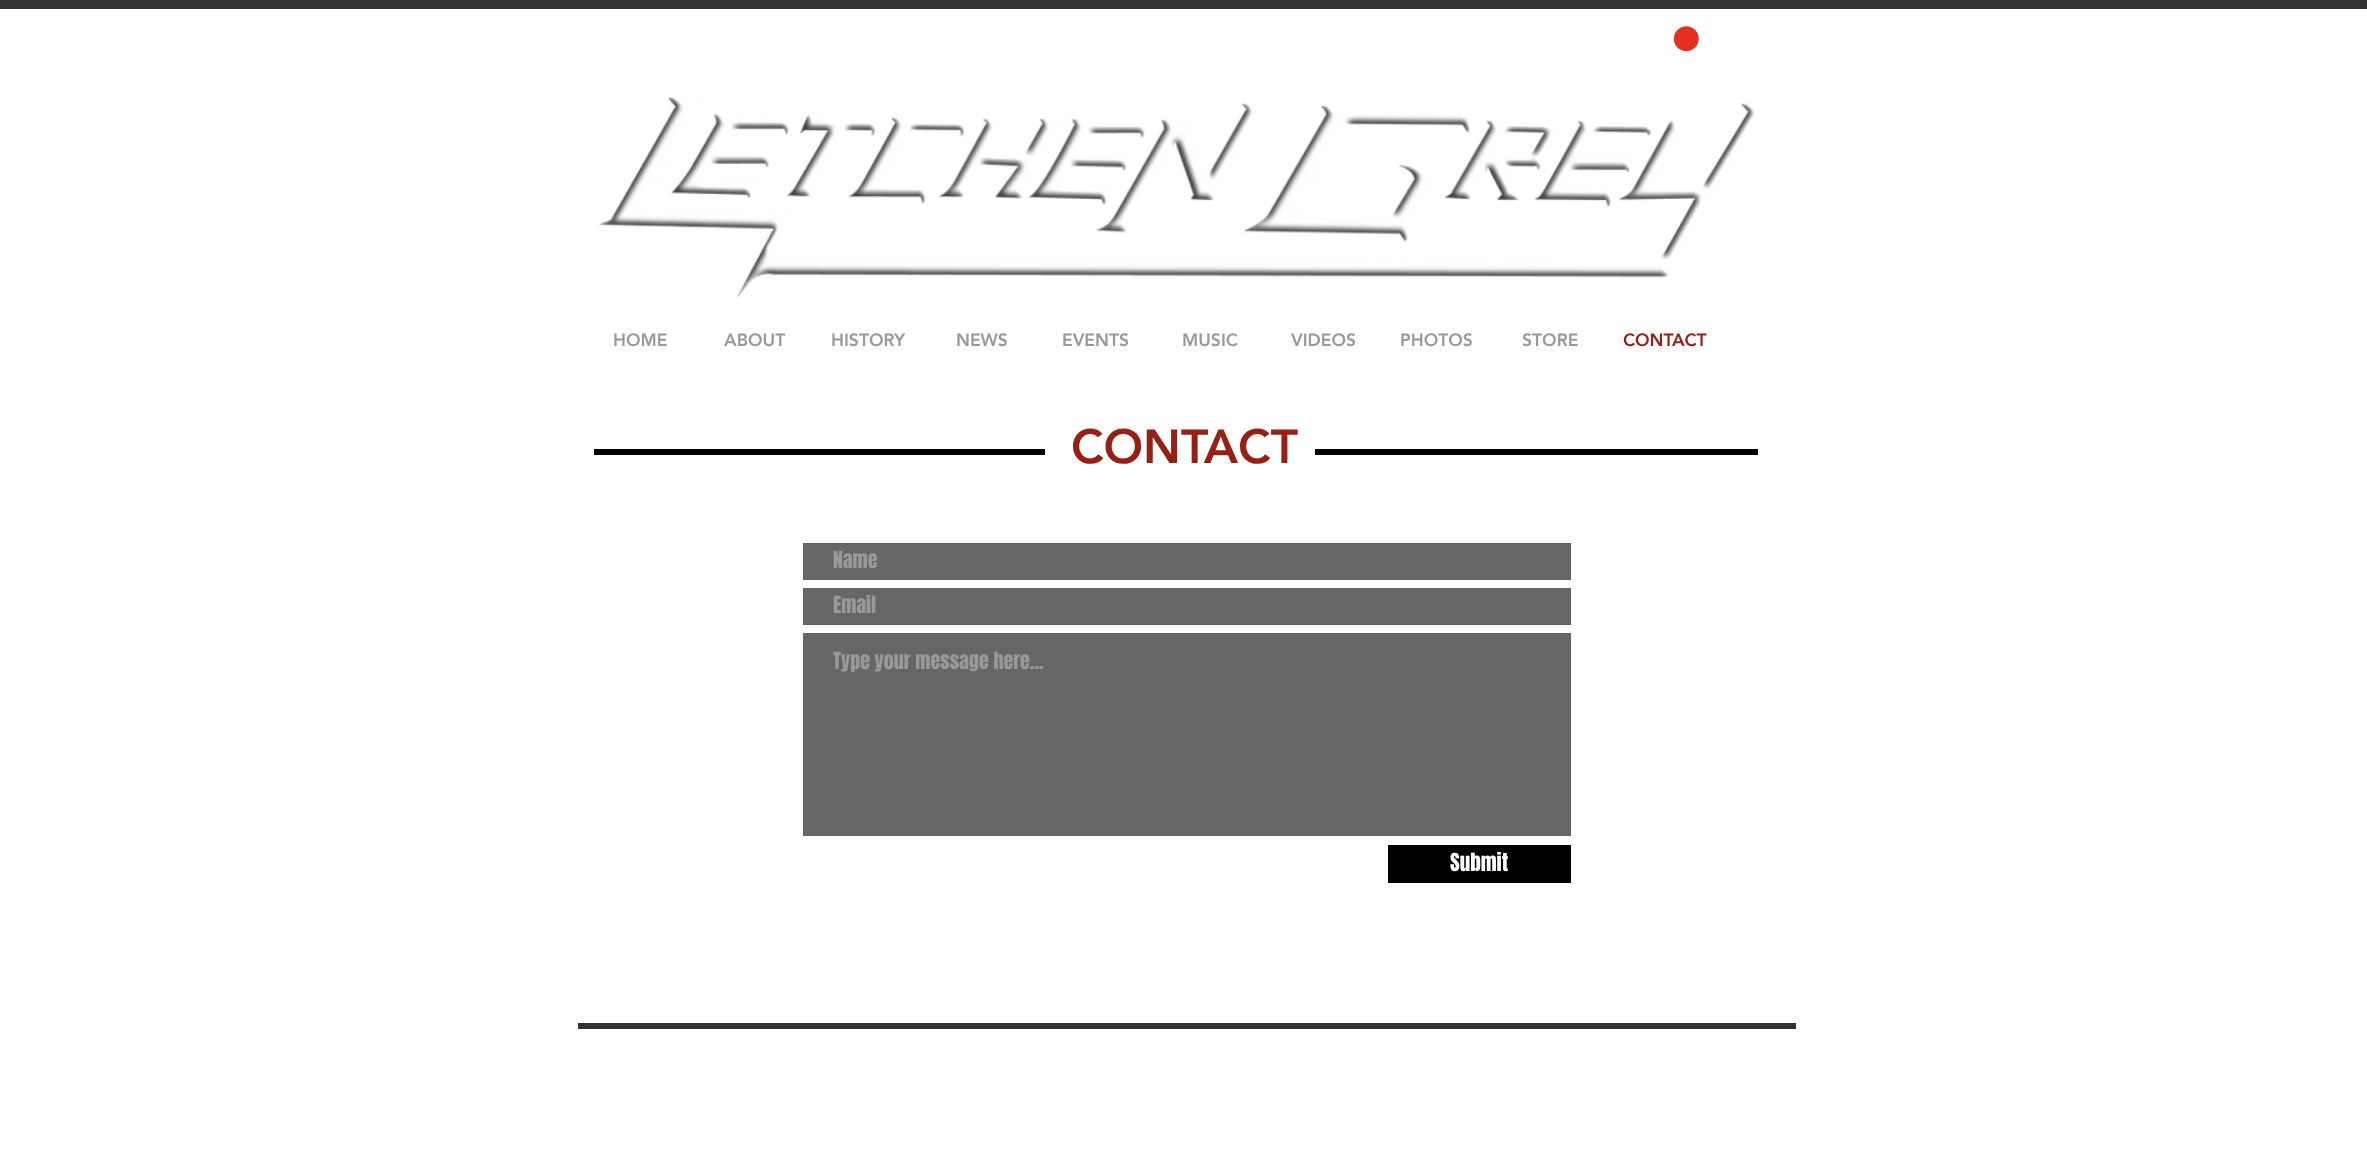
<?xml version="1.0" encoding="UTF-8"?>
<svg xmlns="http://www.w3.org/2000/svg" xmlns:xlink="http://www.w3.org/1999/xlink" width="2367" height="1162">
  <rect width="100%" height="100%" fill="#ffffff" />
  <rect width="2367" height="9" fill="#333333" />
  <image x="1673" y="26" width="26" height="26" xlink:href="image1.png" />
  <image x="598" y="96" width="1157" height="203" xlink:href="image2.png" />
  <rect x="594" y="449" width="451" height="6" fill="#000000" />
  <rect x="1315" y="449" width="443" height="6" fill="#000000" />
  <rect x="803" y="543" width="768" height="37" fill="#666666" />
  <rect x="803" y="588" width="768" height="37" fill="#666666" />
  <rect x="803" y="633" width="768" height="203" fill="#666666" />
  <rect x="1388" y="845" width="183" height="38" fill="#000000" />
  <rect x="578" y="1023" width="1218" height="6" fill="#333333" />
  <text x="613" y="346" style="font-family: 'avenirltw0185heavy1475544'; font-size: 17.5px; font-weight: 900; fill: #999999">HOME</text>
  <text x="724" y="346" style="font-family: 'avenirltw0185heavy1475544'; font-size: 17.5px; font-weight: 900; fill: #999999">ABOUT</text>
  <text x="831" y="346" style="font-family: 'avenirltw0185heavy1475544'; font-size: 17.5px; font-weight: 900; fill: #999999">HISTORY</text>
  <text x="956" y="346" style="font-family: 'avenirltw0185heavy1475544'; font-size: 17.5px; font-weight: 900; fill: #999999">NEWS</text>
  <text x="1062" y="346" style="font-family: 'avenirltw0185heavy1475544'; font-size: 17.5px; font-weight: 900; fill: #999999">EVENTS</text>
  <text x="1182" y="346" style="font-family: 'avenirltw0185heavy1475544'; font-size: 17.5px; font-weight: 900; fill: #999999">MUSIC</text>
  <text x="1291" y="346" style="font-family: 'avenirltw0185heavy1475544'; font-size: 17.5px; font-weight: 900; fill: #999999">VIDEOS</text>
  <text x="1400" y="346" style="font-family: 'avenirltw0185heavy1475544'; font-size: 17.5px; font-weight: 900; fill: #999999">PHOTOS</text>
  <text x="1522" y="346" style="font-family: 'avenirltw0185heavy1475544'; font-size: 17.5px; font-weight: 900; fill: #999999">STORE</text>
  <text x="1623" y="346" style="font-family: 'avenirltw0185heavy1475544'; font-size: 17.5px; font-weight: 900; fill: #972015">CONTACT</text>
  <text x="1071" y="463" style="font-family: 'avenirltw0185heavy1475544'; font-size: 47.5px; font-weight: 900; fill: #972015">CONTACT</text>
  <text x="833" y="568" style="font-family: Anton; font-size: 20px; fill: #999999">Name</text>
  <text x="833" y="613" style="font-family: Anton; font-size: 20px; fill: #999999">Email</text>
  <text x="833" y="669" style="font-family: Anton; font-size: 20px; fill: #999999">Type your message here...</text>
  <text x="1450" y="871" style="font-family: Anton; font-size: 21px; fill: #ffffff">Submit</text>
</svg>
